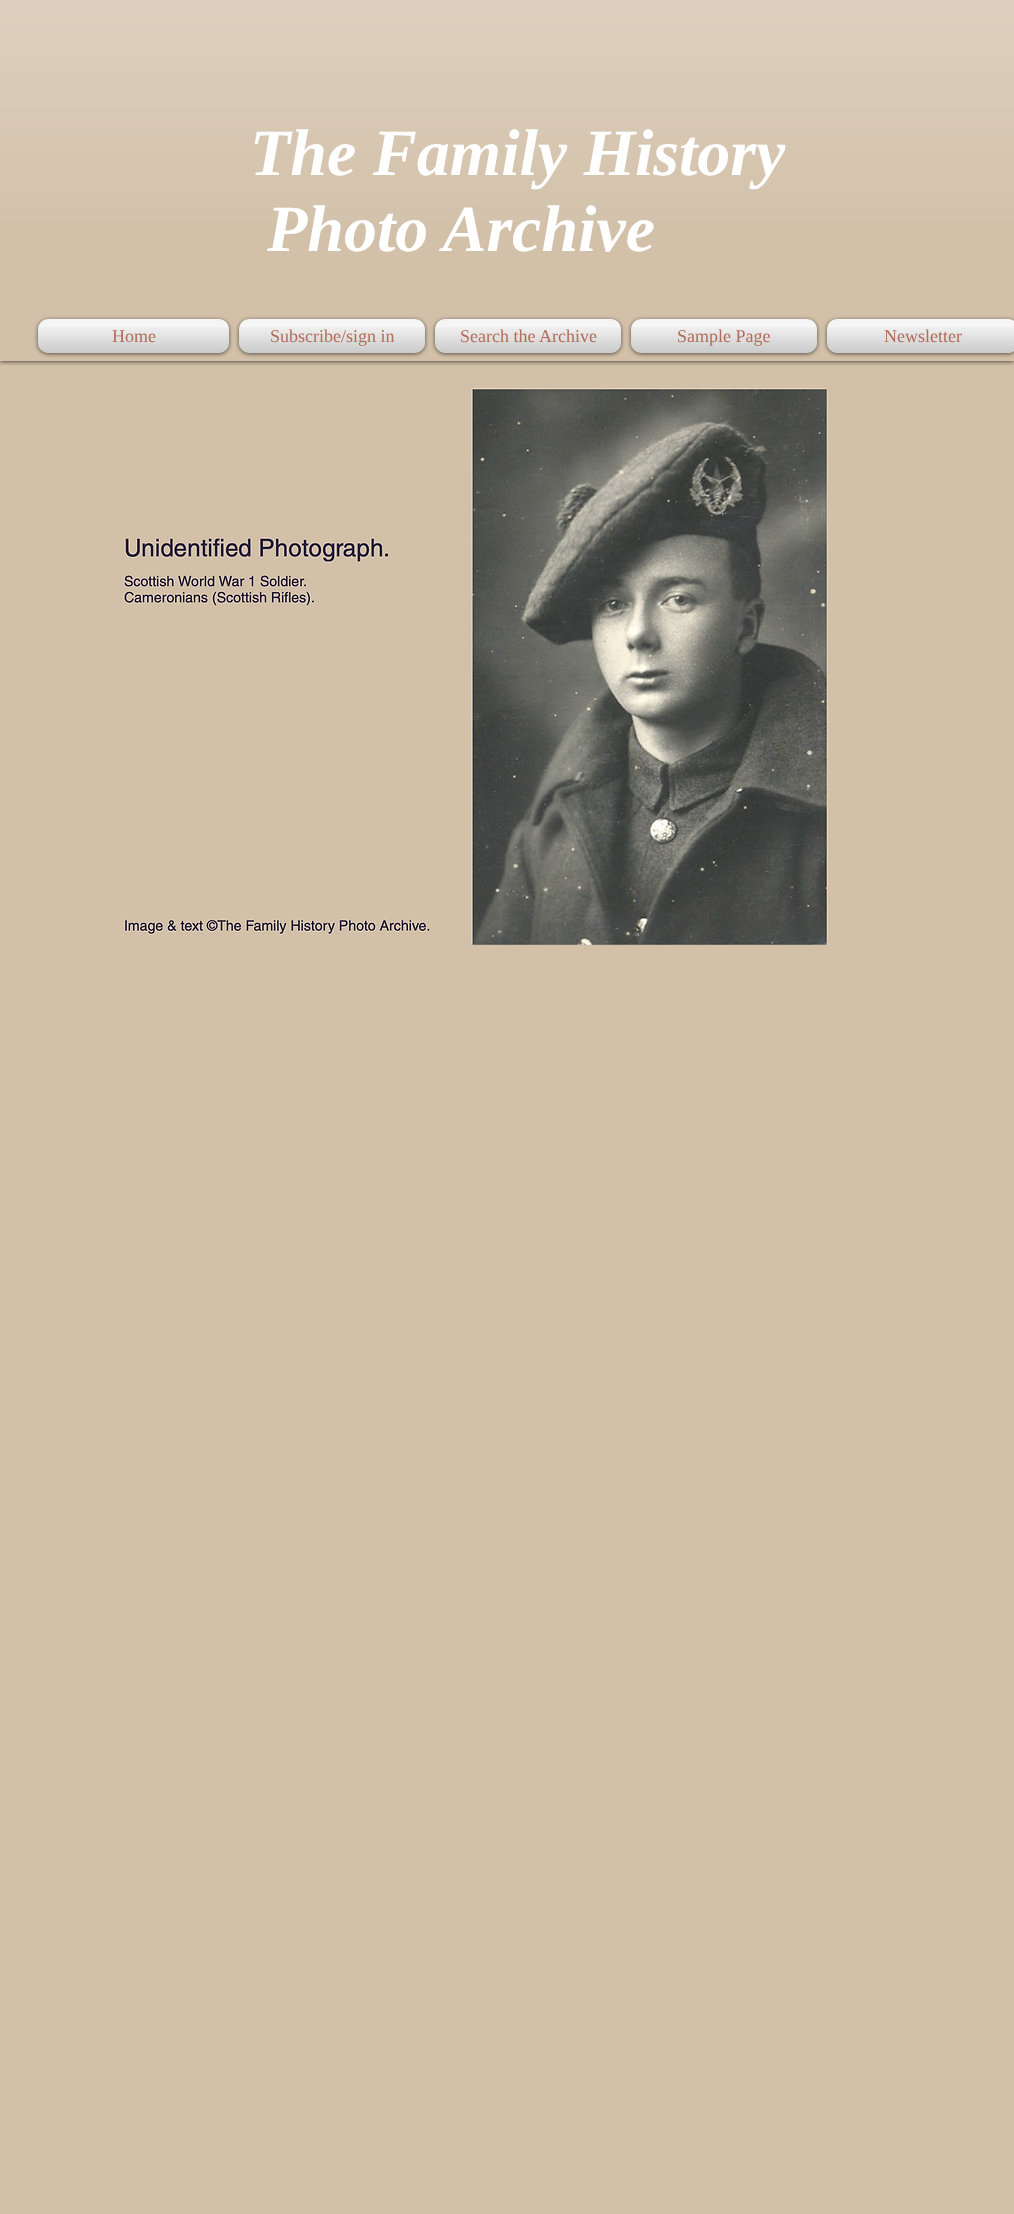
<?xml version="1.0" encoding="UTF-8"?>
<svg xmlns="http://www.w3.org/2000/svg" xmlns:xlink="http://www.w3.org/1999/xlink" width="1014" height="2214">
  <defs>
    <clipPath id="clip1"><rect x="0" y="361" width="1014" height="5" /></clipPath>
  </defs>
  <rect width="100%" height="100%" fill="#d2c0a8" />
  <g clip-path="url(#clip1)">
    <rect y="1" width="1014" height="361" fill="#000000" fill-opacity="0.6" filter="blur(2px)" />
  </g>
  <image x="0" y="0" width="1014" height="221" xlink:href="image1.png" />
  <rect x="38" y="320" width="191" height="34" rx="10" fill="#000000" fill-opacity="0.6" filter="blur(2px)" />
  <rect x="38" y="319" width="191" height="34" rx="10" fill="#f5f5f5" />
  <image x="38" y="327" width="191" height="26" xlink:href="image2.png" />
  <rect x="239" y="320" width="186" height="34" rx="10" fill="#000000" fill-opacity="0.6" filter="blur(2px)" />
  <rect x="239" y="319" width="186" height="34" rx="10" fill="#f5f5f5" />
  <image x="239" y="327" width="186" height="26" xlink:href="image3.png" />
  <rect x="435" y="320" width="186" height="34" rx="10" fill="#000000" fill-opacity="0.6" filter="blur(2px)" />
  <rect x="435" y="319" width="186" height="34" rx="10" fill="#f5f5f5" />
  <image x="435" y="327" width="186" height="26" xlink:href="image3.png" />
  <rect x="631" y="320" width="186" height="34" rx="10" fill="#000000" fill-opacity="0.6" filter="blur(2px)" />
  <rect x="631" y="319" width="186" height="34" rx="10" fill="#f5f5f5" />
  <image x="631" y="327" width="186" height="26" xlink:href="image3.png" />
  <rect x="827" y="320" width="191" height="34" rx="10" fill="#000000" fill-opacity="0.6" filter="blur(2px)" />
  <rect x="827" y="319" width="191" height="34" rx="10" fill="#f5f5f5" />
  <image x="827" y="327" width="187" height="26" xlink:href="image4.png" />
  <image x="123" y="388" width="705" height="557" xlink:href="image5.png" />
  <text x="250" y="175" style="font-family: Liberation Serif; font-size: 66px; font-weight: bold; font-style: italic; fill: #ffffff">The Family History</text>
  <text x="267" y="251" style="font-family: Liberation Serif; font-size: 66px; font-weight: bold; font-style: italic; fill: #ffffff">Photo Archive</text>
  <text x="112" y="342" style="font-family: Liberation Serif; font-size: 18px; fill: #b26c57">Home</text>
  <text x="270" y="342" style="font-family: Liberation Serif; font-size: 18px; fill: #b26c57">Subscribe/sign in</text>
  <text x="460" y="342" style="font-family: Liberation Serif; font-size: 18px; fill: #b26c57">Search the Archive</text>
  <text x="677" y="342" style="font-family: Liberation Serif; font-size: 18px; fill: #b26c57">Sample Page</text>
  <text x="884" y="342" style="font-family: Liberation Serif; font-size: 18px; fill: #b26c57">Newsletter</text>
</svg>
